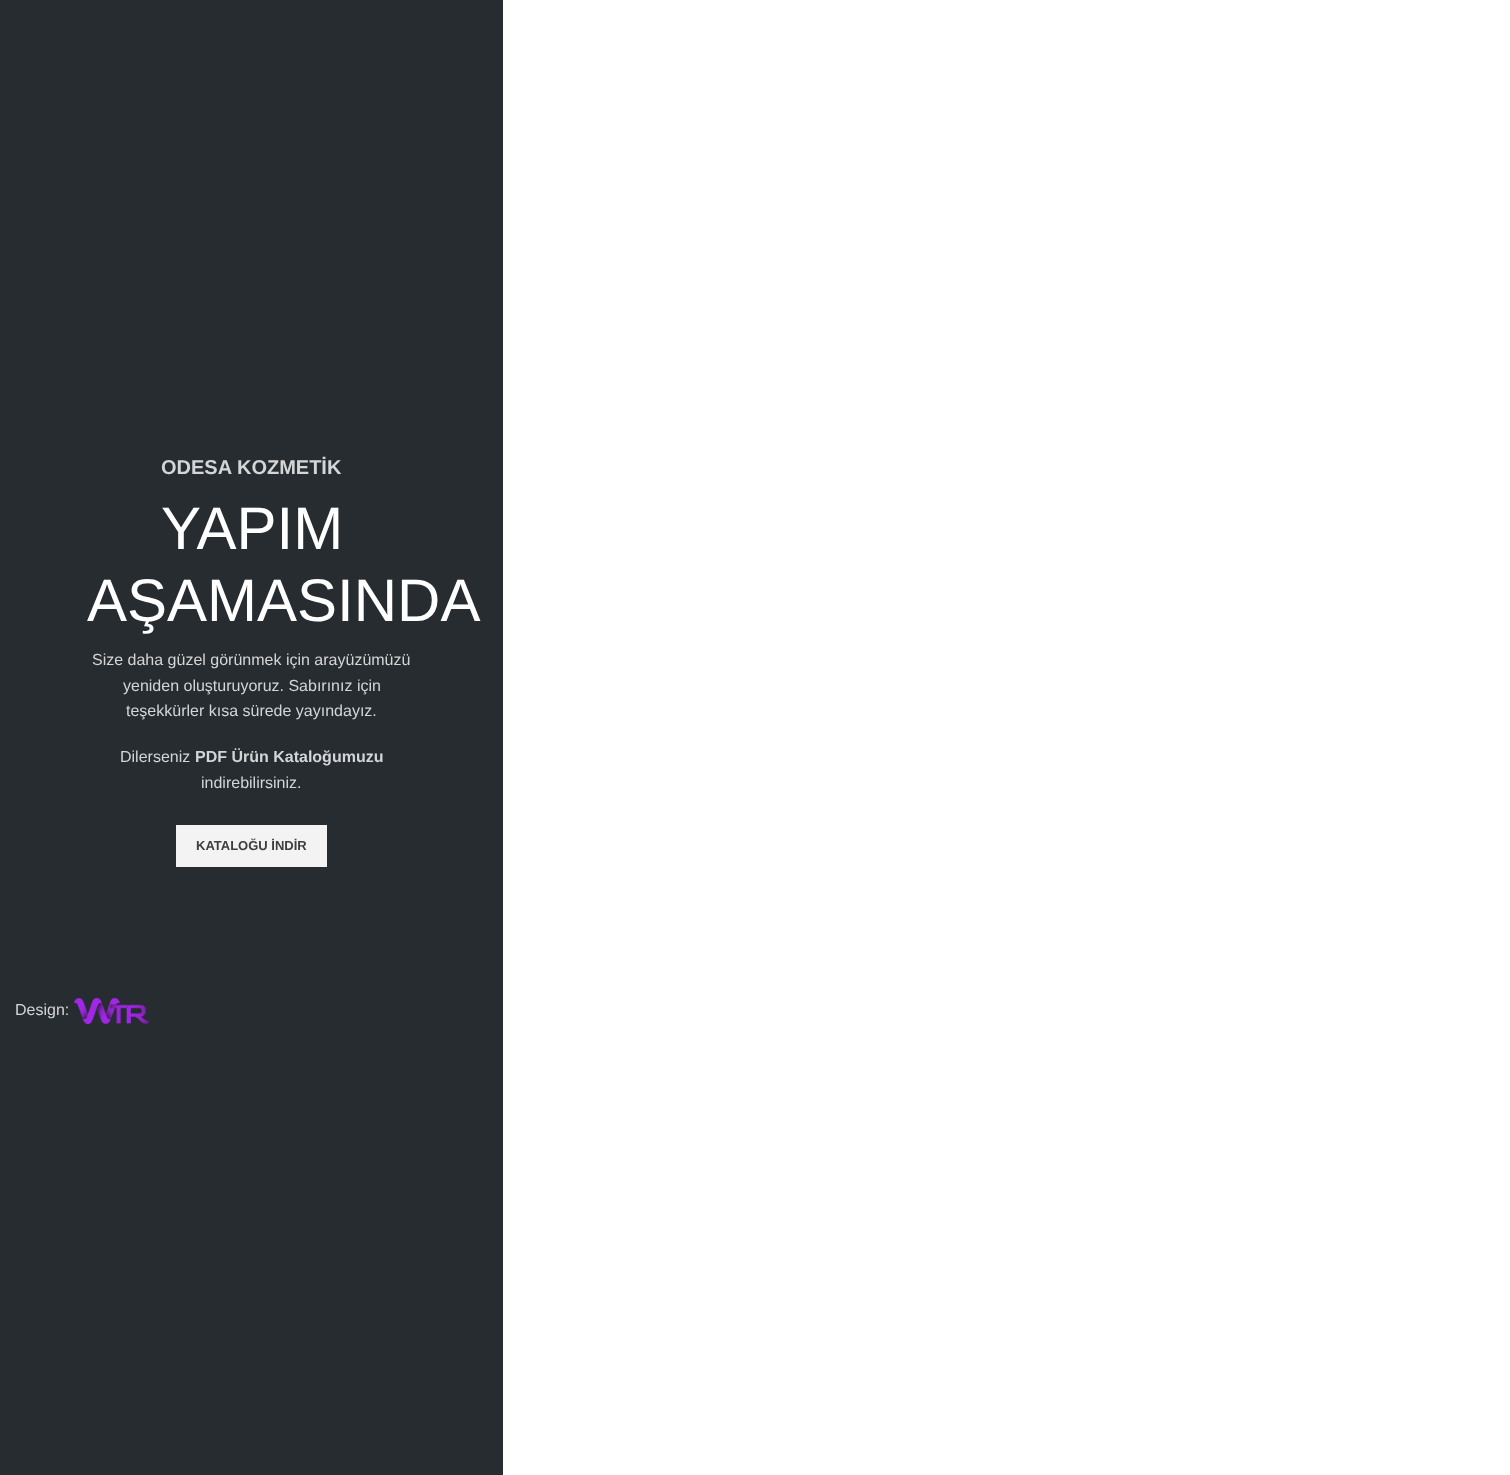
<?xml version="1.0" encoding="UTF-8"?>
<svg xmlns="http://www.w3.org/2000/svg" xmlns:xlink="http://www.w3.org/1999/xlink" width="1510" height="1475">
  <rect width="100%" height="100%" fill="#ffffff" />
  <rect width="503" height="1475" fill="#272c30" />
  <rect x="176" y="825" width="151" height="42" fill="#f3f3f3" />
  <image x="74" y="998" width="75" height="26" xlink:href="image1.png" />
  <text x="161" y="474" style="font-family: Liberation Sans; font-size: 20px; font-weight: bold; fill: #d4d5d6">ODESA KOZMETİK</text>
  <text x="161" y="549" style="font-family: Liberation Sans; font-size: 60px; fill: #ffffff">YAPIM</text>
  <text x="87" y="621" style="font-family: Liberation Sans; font-size: 60px; fill: #ffffff">AŞAMASINDA</text>
  <text x="92" y="665" style="font-family: Liberation Sans; font-size: 16px; fill: #d4d5d6">Size daha güzel görünmek için arayüzümüzü</text>
  <text x="123" y="691" style="font-family: Liberation Sans; font-size: 16px; fill: #d4d5d6">yeniden oluşturuyoruz. Sabırınız için</text>
  <text x="126" y="716" style="font-family: Liberation Sans; font-size: 16px; fill: #d4d5d6">teşekkürler kısa sürede yayındayız.</text>
  <text x="120" y="762" style="font-family: Liberation Sans; font-size: 16px; fill: #d4d5d6">Dilerseniz</text>
  <text x="195" y="762" style="font-family: Liberation Sans; font-size: 16px; font-weight: bold; fill: #d4d5d6">PDF Ürün Kataloğumuzu</text>
  <text x="201" y="788" style="font-family: Liberation Sans; font-size: 16px; fill: #d4d5d6">indirebilirsiniz.</text>
  <text x="196" y="850" style="font-family: Liberation Sans; font-size: 13px; font-weight: bold; fill: #3e3e3e">KATALOĞU İNDİR</text>
  <text x="15" y="1015" style="font-family: Liberation Sans; font-size: 16px; fill: #d4d5d6">Design:</text>
</svg>
